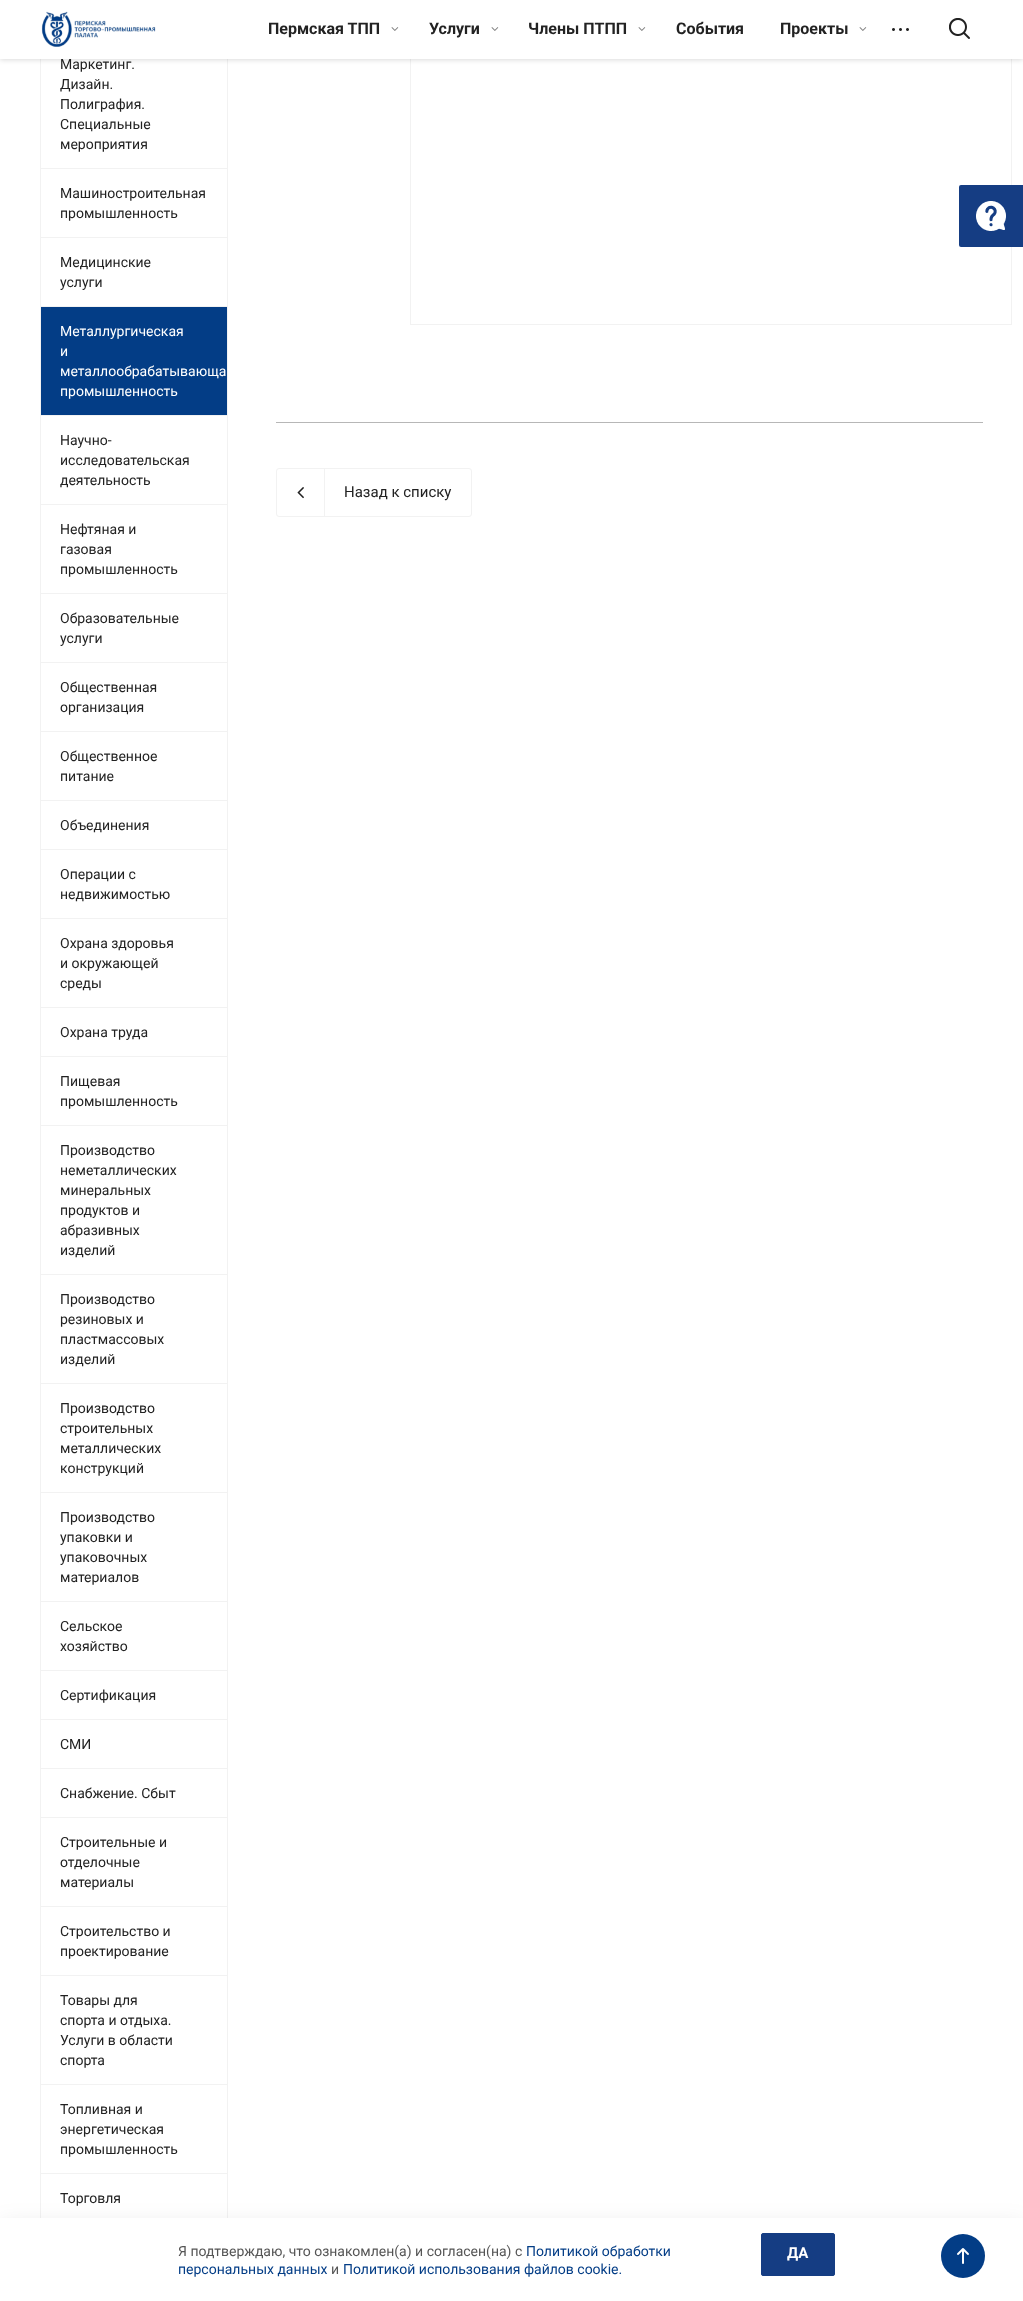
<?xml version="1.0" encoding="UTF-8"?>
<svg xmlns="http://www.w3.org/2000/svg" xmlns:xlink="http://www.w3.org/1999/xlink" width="1023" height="2301">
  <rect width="100%" height="100%" fill="#ffffff" />
  <rect x="227" y="59" width="1" height="109" fill="#f2f2f2" />
  <rect x="40" y="59" width="1" height="109" fill="#f2f2f2" />
  <rect x="410.5" y="-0.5" width="601" height="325" fill="none" stroke="#f2f2f2" />
  <rect y="1" width="1023" height="59" fill="#000000" fill-opacity="0.14" filter="blur(2.5px)" />
  <rect width="1023" height="59" fill="#ffffff" />
  <image x="41" y="11" width="115" height="36" xlink:href="image1.png" />
  <image x="391" y="27" width="8" height="4" xlink:href="image2.png" />
  <image x="491" y="27" width="8" height="4" xlink:href="image2.png" />
  <image x="638" y="27" width="8" height="4" xlink:href="image2.png" />
  <image x="859" y="27" width="8" height="4" xlink:href="image2.png" />
  <image x="892" y="28" width="17" height="3" xlink:href="image3.png" />
  <image x="949" y="18" width="21" height="21" xlink:href="image4.png" />
  <rect x="40" y="168" width="188" height="1" fill="#f2f2f2" />
  <rect x="227" y="168" width="1" height="69" fill="#f2f2f2" />
  <rect x="40" y="168" width="1" height="69" fill="#f2f2f2" />
  <rect x="40" y="237" width="188" height="1" fill="#f2f2f2" />
  <rect x="227" y="237" width="1" height="69" fill="#f2f2f2" />
  <rect x="40" y="237" width="1" height="69" fill="#f2f2f2" />
  <rect x="41" y="307" width="186" height="108" fill="#033d86" />
  <rect x="40" y="306" width="188" height="1" fill="#f2f2f2" />
  <rect x="227" y="306" width="1" height="109" fill="#f2f2f2" />
  <rect x="40" y="306" width="1" height="109" fill="#f2f2f2" />
  <rect x="40" y="415" width="188" height="1" fill="#f2f2f2" />
  <rect x="227" y="415" width="1" height="89" fill="#f2f2f2" />
  <rect x="40" y="415" width="1" height="89" fill="#f2f2f2" />
  <rect x="40" y="504" width="188" height="1" fill="#f2f2f2" />
  <rect x="227" y="504" width="1" height="89" fill="#f2f2f2" />
  <rect x="40" y="504" width="1" height="89" fill="#f2f2f2" />
  <rect x="40" y="593" width="188" height="1" fill="#f2f2f2" />
  <rect x="227" y="593" width="1" height="69" fill="#f2f2f2" />
  <rect x="40" y="593" width="1" height="69" fill="#f2f2f2" />
  <rect x="40" y="662" width="188" height="1" fill="#f2f2f2" />
  <rect x="227" y="662" width="1" height="69" fill="#f2f2f2" />
  <rect x="40" y="662" width="1" height="69" fill="#f2f2f2" />
  <rect x="40" y="731" width="188" height="1" fill="#f2f2f2" />
  <rect x="227" y="731" width="1" height="69" fill="#f2f2f2" />
  <rect x="40" y="731" width="1" height="69" fill="#f2f2f2" />
  <rect x="40" y="800" width="188" height="1" fill="#f2f2f2" />
  <rect x="227" y="800" width="1" height="49" fill="#f2f2f2" />
  <rect x="40" y="800" width="1" height="49" fill="#f2f2f2" />
  <rect x="40" y="849" width="188" height="1" fill="#f2f2f2" />
  <rect x="227" y="849" width="1" height="69" fill="#f2f2f2" />
  <rect x="40" y="849" width="1" height="69" fill="#f2f2f2" />
  <rect x="40" y="918" width="188" height="1" fill="#f2f2f2" />
  <rect x="227" y="918" width="1" height="89" fill="#f2f2f2" />
  <rect x="40" y="918" width="1" height="89" fill="#f2f2f2" />
  <rect x="40" y="1007" width="188" height="1" fill="#f2f2f2" />
  <rect x="227" y="1007" width="1" height="49" fill="#f2f2f2" />
  <rect x="40" y="1007" width="1" height="49" fill="#f2f2f2" />
  <rect x="40" y="1056" width="188" height="1" fill="#f2f2f2" />
  <rect x="227" y="1056" width="1" height="69" fill="#f2f2f2" />
  <rect x="40" y="1056" width="1" height="69" fill="#f2f2f2" />
  <rect x="40" y="1125" width="188" height="1" fill="#f2f2f2" />
  <rect x="227" y="1125" width="1" height="149" fill="#f2f2f2" />
  <rect x="40" y="1125" width="1" height="149" fill="#f2f2f2" />
  <rect x="40" y="1274" width="188" height="1" fill="#f2f2f2" />
  <rect x="227" y="1274" width="1" height="109" fill="#f2f2f2" />
  <rect x="40" y="1274" width="1" height="109" fill="#f2f2f2" />
  <rect x="40" y="1383" width="188" height="1" fill="#f2f2f2" />
  <rect x="227" y="1383" width="1" height="109" fill="#f2f2f2" />
  <rect x="40" y="1383" width="1" height="109" fill="#f2f2f2" />
  <rect x="40" y="1492" width="188" height="1" fill="#f2f2f2" />
  <rect x="227" y="1492" width="1" height="109" fill="#f2f2f2" />
  <rect x="40" y="1492" width="1" height="109" fill="#f2f2f2" />
  <rect x="40" y="1601" width="188" height="1" fill="#f2f2f2" />
  <rect x="227" y="1601" width="1" height="69" fill="#f2f2f2" />
  <rect x="40" y="1601" width="1" height="69" fill="#f2f2f2" />
  <rect x="40" y="1670" width="188" height="1" fill="#f2f2f2" />
  <rect x="227" y="1670" width="1" height="49" fill="#f2f2f2" />
  <rect x="40" y="1670" width="1" height="49" fill="#f2f2f2" />
  <rect x="40" y="1719" width="188" height="1" fill="#f2f2f2" />
  <rect x="227" y="1719" width="1" height="49" fill="#f2f2f2" />
  <rect x="40" y="1719" width="1" height="49" fill="#f2f2f2" />
  <rect x="40" y="1768" width="188" height="1" fill="#f2f2f2" />
  <rect x="227" y="1768" width="1" height="49" fill="#f2f2f2" />
  <rect x="40" y="1768" width="1" height="49" fill="#f2f2f2" />
  <rect x="40" y="1817" width="188" height="1" fill="#f2f2f2" />
  <rect x="227" y="1817" width="1" height="89" fill="#f2f2f2" />
  <rect x="40" y="1817" width="1" height="89" fill="#f2f2f2" />
  <rect x="40" y="1906" width="188" height="1" fill="#f2f2f2" />
  <rect x="227" y="1906" width="1" height="69" fill="#f2f2f2" />
  <rect x="40" y="1906" width="1" height="69" fill="#f2f2f2" />
  <rect x="40" y="1975" width="188" height="1" fill="#f2f2f2" />
  <rect x="227" y="1975" width="1" height="109" fill="#f2f2f2" />
  <rect x="40" y="1975" width="1" height="109" fill="#f2f2f2" />
  <rect x="40" y="2084" width="188" height="1" fill="#f2f2f2" />
  <rect x="227" y="2084" width="1" height="89" fill="#f2f2f2" />
  <rect x="40" y="2084" width="1" height="89" fill="#f2f2f2" />
  <rect x="40" y="2173" width="188" height="1" fill="#f2f2f2" />
  <rect x="227" y="2173" width="1" height="49" fill="#f2f2f2" />
  <rect x="40" y="2173" width="1" height="49" fill="#f2f2f2" />
  <rect x="276" y="422" width="707" height="1" fill="#b7b7b7" />
  <rect x="276.5" y="468.5" width="195" height="48" rx="2.5" fill="none" stroke="#f2f2f2" />
  <image x="297" y="487" width="7" height="12" xlink:href="image5.png" />
  <rect x="324" y="469" width="1" height="47" fill="#f2f2f2" />
  <image x="959" y="185" width="64" height="62" xlink:href="image6.png" />
  <rect y="2226" width="1023" height="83" fill="#151516" fill-opacity="0.1" filter="blur(12px)" />
  <rect y="2218" width="1023" height="83" fill="#ffffff" />
  <rect x="761.5" y="2233.5" width="73" height="42" rx="1.5" fill="#153d83" stroke="#153d83" />
  <circle cx="963" cy="2256" r="22" fill="#033d86" />
  <image x="957" y="2248" width="12" height="16" xlink:href="image7.png" />
  <text x="268" y="34" style="font-family: Roboto; font-size: 16px; font-weight: bold; fill: #222222">Пермская ТПП</text>
  <text x="429" y="34" style="font-family: Roboto; font-size: 16px; font-weight: bold; fill: #222222">Услуги</text>
  <text x="528" y="34" style="font-family: Roboto; font-size: 16px; font-weight: bold; fill: #222222">Члены ПТПП</text>
  <text x="676" y="34" style="font-family: Roboto; font-size: 16px; font-weight: bold; fill: #222222">События</text>
  <text x="780" y="34" style="font-family: Roboto; font-size: 16px; font-weight: bold; fill: #222222">Проекты</text>
  <text x="60" y="69" style="font-family: Roboto; font-size: 14px; fill: #222222">Маркетинг.</text>
  <text x="60" y="89" style="font-family: Roboto; font-size: 14px; fill: #222222">Дизайн.</text>
  <text x="60" y="109" style="font-family: Roboto; font-size: 14px; fill: #222222">Полиграфия.</text>
  <text x="60" y="129" style="font-family: Roboto; font-size: 14px; fill: #222222">Специальные</text>
  <text x="60" y="149" style="font-family: Roboto; font-size: 14px; fill: #222222">мероприятия</text>
  <text x="60" y="198" style="font-family: Roboto; font-size: 14px; fill: #222222">Машиностроительная</text>
  <text x="60" y="218" style="font-family: Roboto; font-size: 14px; fill: #222222">промышленность</text>
  <text x="60" y="267" style="font-family: Roboto; font-size: 14px; fill: #222222">Медицинские</text>
  <text x="60" y="287" style="font-family: Roboto; font-size: 14px; fill: #222222">услуги</text>
  <text x="60" y="336" style="font-family: Roboto; font-size: 14px; fill: #ffffff">Металлургическая</text>
  <text x="60" y="356" style="font-family: Roboto; font-size: 14px; fill: #ffffff">и</text>
  <text x="60" y="376" style="font-family: Roboto; font-size: 14px; fill: #ffffff">металлообрабатывающа</text>
  <text x="60" y="396" style="font-family: Roboto; font-size: 14px; fill: #ffffff">промышленность</text>
  <text x="60" y="445" style="font-family: Roboto; font-size: 14px; fill: #222222">Научно-</text>
  <text x="60" y="465" style="font-family: Roboto; font-size: 14px; fill: #222222">исследовательская</text>
  <text x="60" y="485" style="font-family: Roboto; font-size: 14px; fill: #222222">деятельность</text>
  <text x="60" y="534" style="font-family: Roboto; font-size: 14px; fill: #222222">Нефтяная и</text>
  <text x="60" y="554" style="font-family: Roboto; font-size: 14px; fill: #222222">газовая</text>
  <text x="60" y="574" style="font-family: Roboto; font-size: 14px; fill: #222222">промышленность</text>
  <text x="60" y="623" style="font-family: Roboto; font-size: 14px; fill: #222222">Образовательные</text>
  <text x="60" y="643" style="font-family: Roboto; font-size: 14px; fill: #222222">услуги</text>
  <text x="60" y="692" style="font-family: Roboto; font-size: 14px; fill: #222222">Общественная</text>
  <text x="60" y="712" style="font-family: Roboto; font-size: 14px; fill: #222222">организация</text>
  <text x="60" y="761" style="font-family: Roboto; font-size: 14px; fill: #222222">Общественное</text>
  <text x="60" y="781" style="font-family: Roboto; font-size: 14px; fill: #222222">питание</text>
  <text x="60" y="830" style="font-family: Roboto; font-size: 14px; fill: #222222">Объединения</text>
  <text x="60" y="879" style="font-family: Roboto; font-size: 14px; fill: #222222">Операции с</text>
  <text x="60" y="899" style="font-family: Roboto; font-size: 14px; fill: #222222">недвижимостью</text>
  <text x="60" y="948" style="font-family: Roboto; font-size: 14px; fill: #222222">Охрана здоровья</text>
  <text x="60" y="968" style="font-family: Roboto; font-size: 14px; fill: #222222">и окружающей</text>
  <text x="60" y="988" style="font-family: Roboto; font-size: 14px; fill: #222222">среды</text>
  <text x="60" y="1037" style="font-family: Roboto; font-size: 14px; fill: #222222">Охрана труда</text>
  <text x="60" y="1086" style="font-family: Roboto; font-size: 14px; fill: #222222">Пищевая</text>
  <text x="60" y="1106" style="font-family: Roboto; font-size: 14px; fill: #222222">промышленность</text>
  <text x="60" y="1155" style="font-family: Roboto; font-size: 14px; fill: #222222">Производство</text>
  <text x="60" y="1175" style="font-family: Roboto; font-size: 14px; fill: #222222">неметаллических</text>
  <text x="60" y="1195" style="font-family: Roboto; font-size: 14px; fill: #222222">минеральных</text>
  <text x="60" y="1215" style="font-family: Roboto; font-size: 14px; fill: #222222">продуктов и</text>
  <text x="60" y="1235" style="font-family: Roboto; font-size: 14px; fill: #222222">абразивных</text>
  <text x="60" y="1255" style="font-family: Roboto; font-size: 14px; fill: #222222">изделий</text>
  <text x="60" y="1304" style="font-family: Roboto; font-size: 14px; fill: #222222">Производство</text>
  <text x="60" y="1324" style="font-family: Roboto; font-size: 14px; fill: #222222">резиновых и</text>
  <text x="60" y="1344" style="font-family: Roboto; font-size: 14px; fill: #222222">пластмассовых</text>
  <text x="60" y="1364" style="font-family: Roboto; font-size: 14px; fill: #222222">изделий</text>
  <text x="60" y="1413" style="font-family: Roboto; font-size: 14px; fill: #222222">Производство</text>
  <text x="60" y="1433" style="font-family: Roboto; font-size: 14px; fill: #222222">строительных</text>
  <text x="60" y="1453" style="font-family: Roboto; font-size: 14px; fill: #222222">металлических</text>
  <text x="60" y="1473" style="font-family: Roboto; font-size: 14px; fill: #222222">конструкций</text>
  <text x="60" y="1522" style="font-family: Roboto; font-size: 14px; fill: #222222">Производство</text>
  <text x="60" y="1542" style="font-family: Roboto; font-size: 14px; fill: #222222">упаковки и</text>
  <text x="60" y="1562" style="font-family: Roboto; font-size: 14px; fill: #222222">упаковочных</text>
  <text x="60" y="1582" style="font-family: Roboto; font-size: 14px; fill: #222222">материалов</text>
  <text x="60" y="1631" style="font-family: Roboto; font-size: 14px; fill: #222222">Сельское</text>
  <text x="60" y="1651" style="font-family: Roboto; font-size: 14px; fill: #222222">хозяйство</text>
  <text x="60" y="1700" style="font-family: Roboto; font-size: 14px; fill: #222222">Сертификация</text>
  <text x="60" y="1749" style="font-family: Roboto; font-size: 14px; fill: #222222">СМИ</text>
  <text x="60" y="1798" style="font-family: Roboto; font-size: 14px; fill: #222222">Снабжение. Сбыт</text>
  <text x="60" y="1847" style="font-family: Roboto; font-size: 14px; fill: #222222">Строительные и</text>
  <text x="60" y="1867" style="font-family: Roboto; font-size: 14px; fill: #222222">отделочные</text>
  <text x="60" y="1887" style="font-family: Roboto; font-size: 14px; fill: #222222">материалы</text>
  <text x="60" y="1936" style="font-family: Roboto; font-size: 14px; fill: #222222">Строительство и</text>
  <text x="60" y="1956" style="font-family: Roboto; font-size: 14px; fill: #222222">проектирование</text>
  <text x="60" y="2005" style="font-family: Roboto; font-size: 14px; fill: #222222">Товары для</text>
  <text x="60" y="2025" style="font-family: Roboto; font-size: 14px; fill: #222222">спорта и отдыха.</text>
  <text x="60" y="2045" style="font-family: Roboto; font-size: 14px; fill: #222222">Услуги в области</text>
  <text x="60" y="2065" style="font-family: Roboto; font-size: 14px; fill: #222222">спорта</text>
  <text x="60" y="2114" style="font-family: Roboto; font-size: 14px; fill: #222222">Топливная и</text>
  <text x="60" y="2134" style="font-family: Roboto; font-size: 14px; fill: #222222">энергетическая</text>
  <text x="60" y="2154" style="font-family: Roboto; font-size: 14px; fill: #222222">промышленность</text>
  <text x="60" y="2203" style="font-family: Roboto; font-size: 14px; fill: #222222">Торговля</text>
  <text x="344" y="497" style="font-family: Roboto; font-size: 15px; fill: #222222">Назад к списку</text>
  <text x="178" y="2256" style="font-family: Roboto; font-size: 14px; fill: #555555">Я подтверждаю, что ознакомлен(а) и согласен(на) с</text>
  <text x="526" y="2256" style="font-family: Roboto; font-size: 14px; fill: #033d86">Политикой обработки</text>
  <text x="178" y="2274" style="font-family: Roboto; font-size: 14px; fill: #033d86">персональных данных</text>
  <text x="331" y="2274" style="font-family: Roboto; font-size: 14px; fill: #555555">и</text>
  <text x="343" y="2274" style="font-family: Roboto; font-size: 14px; fill: #033d86">Политикой использования файлов cookie.</text>
  <text x="787" y="2258" style="font-family: Roboto; font-size: 15px; font-weight: bold; fill: #ffffff">ДА</text>
</svg>
